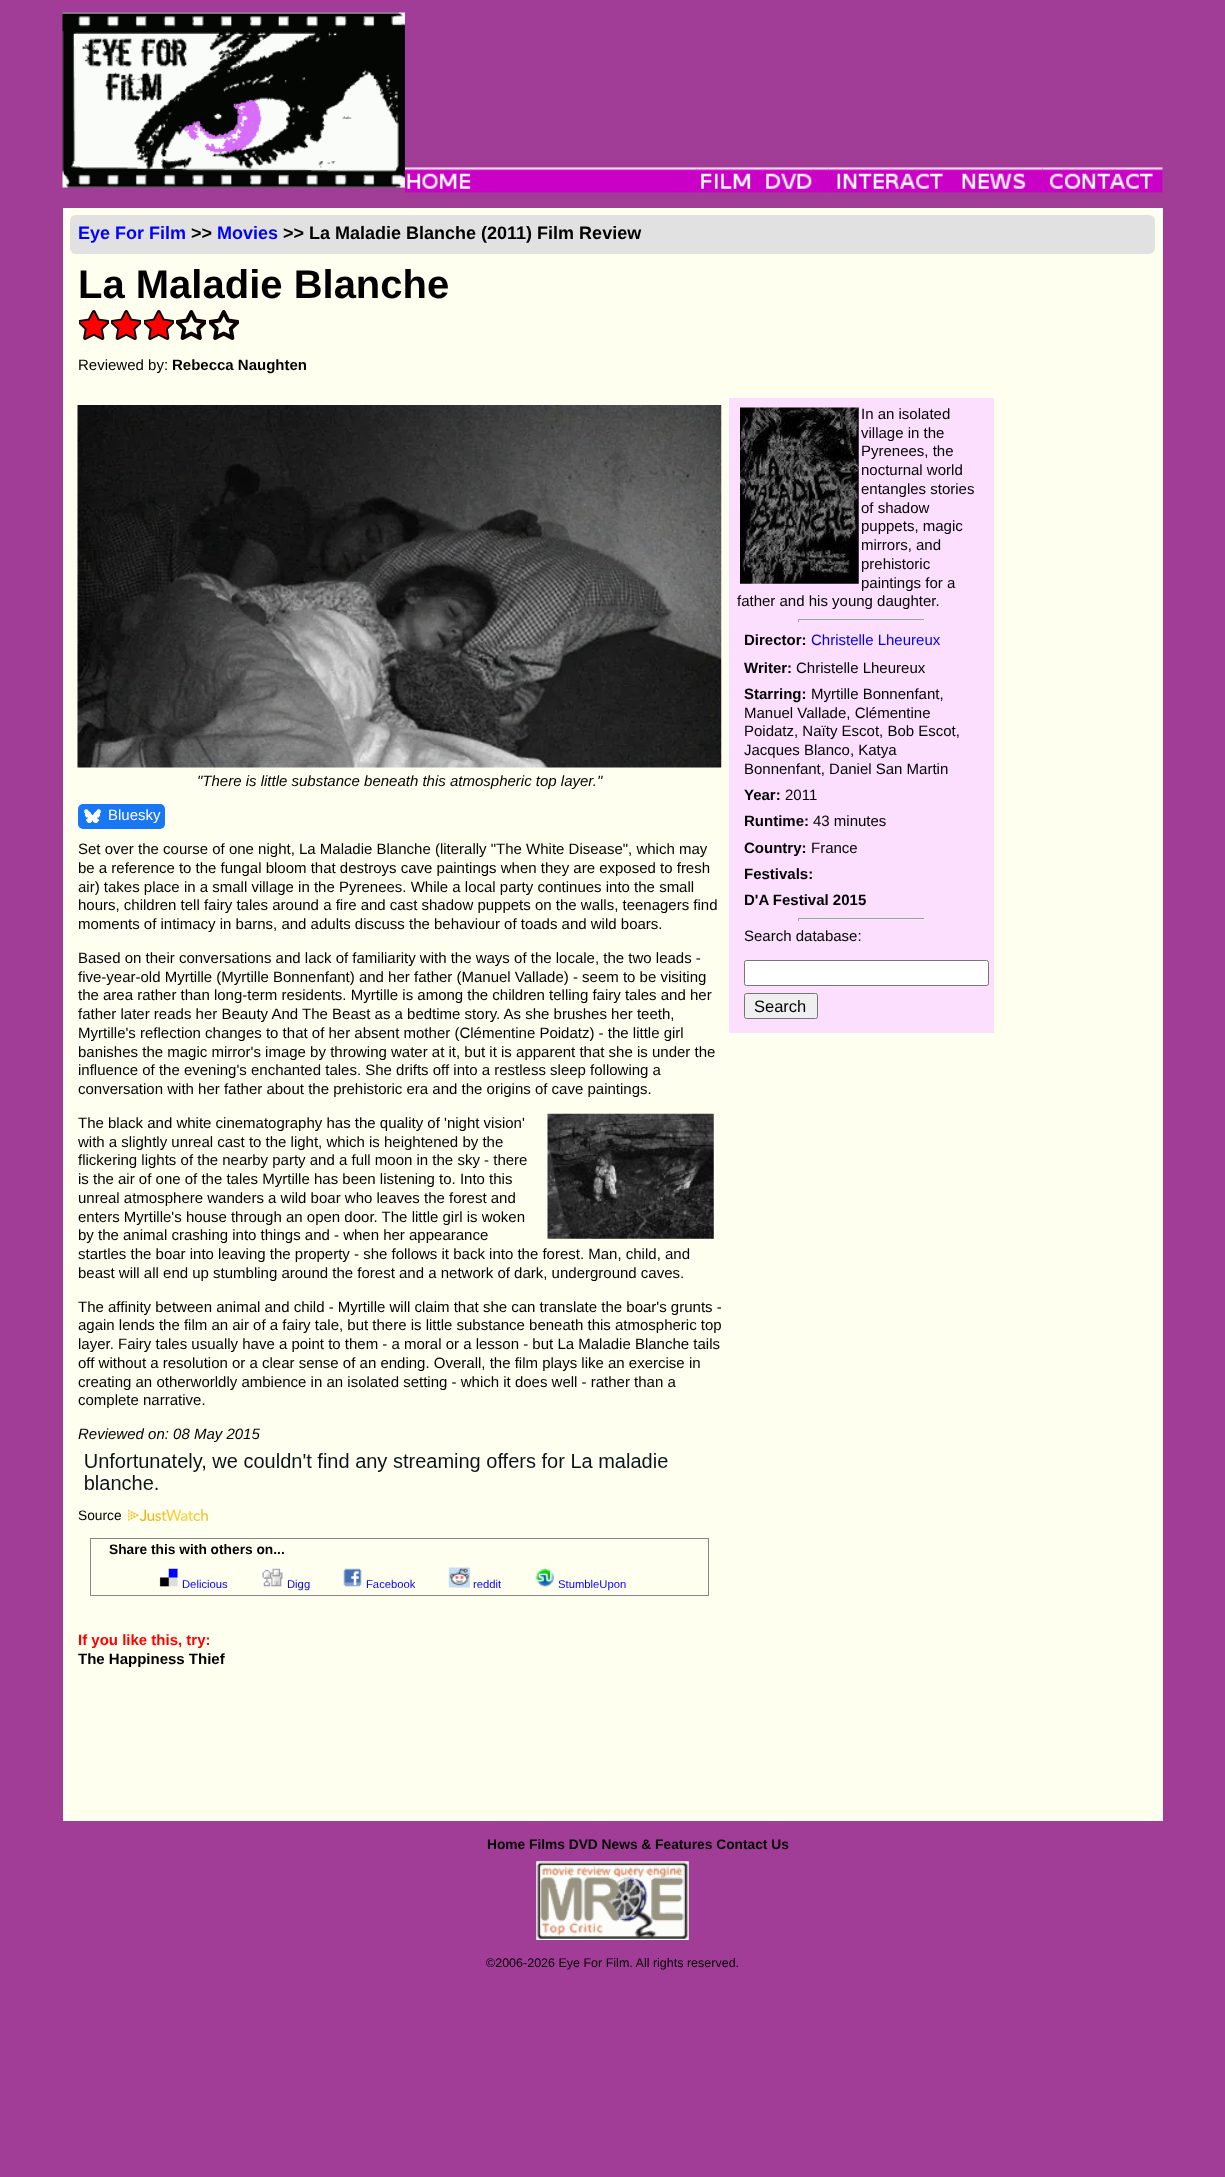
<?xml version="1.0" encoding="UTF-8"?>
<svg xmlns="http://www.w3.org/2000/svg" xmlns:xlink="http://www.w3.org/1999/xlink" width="1225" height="2177">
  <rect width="100%" height="100%" fill="#a13d97" />
  <rect x="63" y="208" width="1100" height="1613" fill="#ffffff" />
  <image x="62" y="12" width="343" height="176" xlink:href="image1.png" />
  <image x="405" y="167" width="70" height="26" xlink:href="image2.png" />
  <image x="475" y="167" width="222" height="26" xlink:href="image3.png" />
  <image x="696" y="167" width="64" height="26" xlink:href="image4.png" />
  <image x="760" y="167" width="69" height="26" xlink:href="image5.png" />
  <image x="828" y="167" width="127" height="26" xlink:href="image6.png" />
  <image x="955" y="167" width="88" height="26" xlink:href="image7.png" />
  <image x="1042" y="167" width="121" height="26" xlink:href="image8.png" />
  <rect x="63" y="208" width="1100" height="1613" rx="13" fill="#fffff0" />
  <rect x="70" y="215" width="1085" height="39" rx="6" fill="#e1e1e1" />
  <image x="79" y="310" width="30" height="30" xlink:href="image9.png" />
  <image x="111" y="310" width="30" height="30" xlink:href="image10.png" />
  <image x="144" y="310" width="30" height="30" xlink:href="image9.png" />
  <image x="176" y="310" width="30" height="30" xlink:href="image11.png" />
  <image x="209" y="310" width="30" height="30" xlink:href="image12.png" />
  <rect x="729" y="398" width="265" height="635" fill="#fcdefe" />
  <image x="740" y="407" width="119" height="177" xlink:href="image13.png" />
  <rect x="798" y="619" width="127" height="1" fill="#9f9f9f" />
  <rect x="924" y="619" width="1" height="3" fill="#eeeeee" />
  <rect x="798" y="620" width="127" height="1" fill="#eeeeee" />
  <rect x="798" y="619" width="1" height="3" fill="#9f9f9f" />
  <rect x="798" y="918" width="127" height="1" fill="#9f9f9f" />
  <rect x="924" y="918" width="1" height="3" fill="#eeeeee" />
  <rect x="798" y="919" width="127" height="1" fill="#eeeeee" />
  <rect x="798" y="918" width="1" height="3" fill="#9f9f9f" />
  <rect x="744.5" y="960.5" width="244" height="25" rx="2" fill="#ffffff" stroke="#767676" />
  <rect x="744.5" y="993.5" width="73" height="25" rx="2" fill="#efefef" stroke="#767676" />
  <image x="77" y="405" width="645" height="363" xlink:href="image14.png" />
  <rect x="78" y="804" width="87" height="25" rx="5" fill="#1877f2" />
  <image x="84" y="809" width="17" height="14" xlink:href="image15.png" />
  <image x="547" y="1113" width="167" height="126" xlink:href="image16.png" />
  <image x="85" y="1453" width="583" height="37" xlink:href="image17.png" />
  <image x="128" y="1509" width="80" height="13" xlink:href="image18.png" />
  <rect x="90.5" y="1538.5" width="618" height="57" fill="none" stroke="#878787" />
  <image x="159" y="1568" width="19" height="19" xlink:href="image19.png" />
  <image x="261" y="1567" width="23" height="21" xlink:href="image20.png" />
  <image x="343" y="1568" width="19" height="19" xlink:href="image21.png" />
  <image x="448" y="1567" width="22" height="21" xlink:href="image22.png" />
  <image x="536" y="1568" width="18" height="19" xlink:href="image23.png" />
  <image x="536" y="1861" width="153" height="79" xlink:href="image24.png" />
  <text x="78" y="239" style="font-family: Liberation Sans; font-size: 18px; font-weight: bold; fill: #0000ff">Eye For Film</text>
  <text x="191" y="239" style="font-family: Liberation Sans; font-size: 18px; font-weight: bold; fill: #000000">&gt;&gt;</text>
  <text x="217" y="239" style="font-family: Liberation Sans; font-size: 18px; font-weight: bold; fill: #0000ff">Movies</text>
  <text x="283" y="239" style="font-family: Liberation Sans; font-size: 18px; font-weight: bold; fill: #000000">&gt;&gt; La Maladie Blanche (2011) Film Review</text>
  <text x="78" y="298" style="font-family: Liberation Sans; font-size: 40px; font-weight: bold; fill: #000000">La Maladie Blanche</text>
  <text x="78" y="370" style="font-family: Liberation Sans; font-size: 15px; fill: #000000">Reviewed by:</text>
  <text x="172" y="370" style="font-family: Liberation Sans; font-size: 15px; font-weight: bold; fill: #000000">Rebecca Naughten</text>
  <text x="861" y="419" style="font-family: Liberation Sans; font-size: 15px; fill: #000000">In an isolated</text>
  <text x="861" y="438" style="font-family: Liberation Sans; font-size: 15px; fill: #000000">village in the</text>
  <text x="861" y="456" style="font-family: Liberation Sans; font-size: 15px; fill: #000000">Pyrenees, the</text>
  <text x="861" y="475" style="font-family: Liberation Sans; font-size: 15px; fill: #000000">nocturnal world</text>
  <text x="861" y="494" style="font-family: Liberation Sans; font-size: 15px; fill: #000000">entangles stories</text>
  <text x="861" y="513" style="font-family: Liberation Sans; font-size: 15px; fill: #000000">of shadow</text>
  <text x="861" y="531" style="font-family: Liberation Sans; font-size: 15px; fill: #000000">puppets, magic</text>
  <text x="861" y="550" style="font-family: Liberation Sans; font-size: 15px; fill: #000000">mirrors, and</text>
  <text x="861" y="569" style="font-family: Liberation Sans; font-size: 15px; fill: #000000">prehistoric</text>
  <text x="861" y="588" style="font-family: Liberation Sans; font-size: 15px; fill: #000000">paintings for a</text>
  <text x="737" y="606" style="font-family: Liberation Sans; font-size: 15px; fill: #000000">father and his young daughter.</text>
  <text x="744" y="645" style="font-family: Liberation Sans; font-size: 15px; font-weight: bold; fill: #000000">Director:</text>
  <text x="811" y="645" style="font-family: Liberation Sans; font-size: 15px; fill: #0000ee">Christelle Lheureux</text>
  <text x="744" y="673" style="font-family: Liberation Sans; font-size: 15px; font-weight: bold; fill: #000000">Writer:</text>
  <text x="796" y="673" style="font-family: Liberation Sans; font-size: 15px; fill: #000000">Christelle Lheureux</text>
  <text x="744" y="699" style="font-family: Liberation Sans; font-size: 15px; font-weight: bold; fill: #000000">Starring:</text>
  <text x="811" y="699" style="font-family: Liberation Sans; font-size: 15px; fill: #000000">Myrtille Bonnenfant,</text>
  <text x="744" y="718" style="font-family: Liberation Sans; font-size: 15px; fill: #000000">Manuel Vallade, Clémentine</text>
  <text x="744" y="736" style="font-family: Liberation Sans; font-size: 15px; fill: #000000">Poidatz, Naïty Escot, Bob Escot,</text>
  <text x="744" y="755" style="font-family: Liberation Sans; font-size: 15px; fill: #000000">Jacques Blanco, Katya</text>
  <text x="744" y="774" style="font-family: Liberation Sans; font-size: 15px; fill: #000000">Bonnenfant, Daniel San Martin</text>
  <text x="744" y="800" style="font-family: Liberation Sans; font-size: 15px; font-weight: bold; fill: #000000">Year:</text>
  <text x="785" y="800" style="font-family: Liberation Sans; font-size: 15px; fill: #000000">2011</text>
  <text x="744" y="826" style="font-family: Liberation Sans; font-size: 15px; font-weight: bold; fill: #000000">Runtime:</text>
  <text x="813" y="826" style="font-family: Liberation Sans; font-size: 15px; fill: #000000">43 minutes</text>
  <text x="744" y="853" style="font-family: Liberation Sans; font-size: 15px; font-weight: bold; fill: #000000">Country:</text>
  <text x="811" y="853" style="font-family: Liberation Sans; font-size: 15px; fill: #000000">France</text>
  <text x="744" y="879" style="font-family: Liberation Sans; font-size: 15px; font-weight: bold; fill: #000000">Festivals:</text>
  <text x="744" y="905" style="font-family: Liberation Sans; font-size: 15px; font-weight: bold; fill: #000000">D'A Festival 2015</text>
  <text x="744" y="941" style="font-family: Liberation Sans; font-size: 15px; fill: #000000">Search database:</text>
  <text x="754" y="1012" style="font-family: Liberation Sans; font-size: 16.5px; fill: #000000">Search</text>
  <text x="197" y="786" style="font-family: Liberation Sans; font-size: 15px; font-style: italic; fill: #000000">"There is little substance beneath this atmospheric top layer."</text>
  <text x="108" y="820" style="font-family: Liberation Sans; font-size: 15px; fill: #ffffff">Bluesky</text>
  <text x="78" y="854" style="font-family: Liberation Sans; font-size: 15px; fill: #000000">Set over the course of one night, La Maladie Blanche (literally "The White Disease", which may</text>
  <text x="78" y="873" style="font-family: Liberation Sans; font-size: 15px; fill: #000000">be a reference to the fungal bloom that destroys cave paintings when they are exposed to fresh</text>
  <text x="78" y="892" style="font-family: Liberation Sans; font-size: 15px; fill: #000000">air) takes place in a small village in the Pyrenees. While a local party continues into the small</text>
  <text x="78" y="910" style="font-family: Liberation Sans; font-size: 15px; fill: #000000">hours, children tell fairy tales around a fire and cast shadow puppets on the walls, teenagers find</text>
  <text x="78" y="929" style="font-family: Liberation Sans; font-size: 15px; fill: #000000">moments of intimacy in barns, and adults discuss the behaviour of toads and wild boars.</text>
  <text x="78" y="963" style="font-family: Liberation Sans; font-size: 15px; fill: #000000">Based on their conversations and lack of familiarity with the ways of the locale, the two leads -</text>
  <text x="78" y="982" style="font-family: Liberation Sans; font-size: 15px; fill: #000000">five-year-old Myrtille (Myrtille Bonnenfant) and her father (Manuel Vallade) - seem to be visiting</text>
  <text x="78" y="1000" style="font-family: Liberation Sans; font-size: 15px; fill: #000000">the area rather than long-term residents. Myrtille is among the children telling fairy tales and her</text>
  <text x="78" y="1019" style="font-family: Liberation Sans; font-size: 15px; fill: #000000">father later reads her Beauty And The Beast as a bedtime story. As she brushes her teeth,</text>
  <text x="78" y="1038" style="font-family: Liberation Sans; font-size: 15px; fill: #000000">Myrtille's reflection changes to that of her absent mother (Clémentine Poidatz) - the little girl</text>
  <text x="78" y="1057" style="font-family: Liberation Sans; font-size: 15px; fill: #000000">banishes the magic mirror's image by throwing water at it, but it is apparent that she is under the</text>
  <text x="78" y="1075" style="font-family: Liberation Sans; font-size: 15px; fill: #000000">influence of the evening's enchanted tales. She drifts off into a restless sleep following a</text>
  <text x="78" y="1094" style="font-family: Liberation Sans; font-size: 15px; fill: #000000">conversation with her father about the prehistoric era and the origins of cave paintings.</text>
  <text x="78" y="1128" style="font-family: Liberation Sans; font-size: 15px; fill: #000000">The black and white cinematography has the quality of 'night vision'</text>
  <text x="78" y="1147" style="font-family: Liberation Sans; font-size: 15px; fill: #000000">with a slightly unreal cast to the light, which is heightened by the</text>
  <text x="78" y="1165" style="font-family: Liberation Sans; font-size: 15px; fill: #000000">flickering lights of the nearby party and a full moon in the sky - there</text>
  <text x="78" y="1184" style="font-family: Liberation Sans; font-size: 15px; fill: #000000">is the air of one of the tales Myrtille has been listening to. Into this</text>
  <text x="78" y="1203" style="font-family: Liberation Sans; font-size: 15px; fill: #000000">unreal atmosphere wanders a wild boar who leaves the forest and</text>
  <text x="78" y="1222" style="font-family: Liberation Sans; font-size: 15px; fill: #000000">enters Myrtille's house through an open door. The little girl is woken</text>
  <text x="78" y="1240" style="font-family: Liberation Sans; font-size: 15px; fill: #000000">by the animal crashing into things and - when her appearance</text>
  <text x="78" y="1259" style="font-family: Liberation Sans; font-size: 15px; fill: #000000">startles the boar into leaving the property - she follows it back into the forest. Man, child, and</text>
  <text x="78" y="1278" style="font-family: Liberation Sans; font-size: 15px; fill: #000000">beast will all end up stumbling around the forest and a network of dark, underground caves.</text>
  <text x="78" y="1312" style="font-family: Liberation Sans; font-size: 15px; fill: #000000">The affinity between animal and child - Myrtille will claim that she can translate the boar's grunts -</text>
  <text x="78" y="1330" style="font-family: Liberation Sans; font-size: 15px; fill: #000000">again lends the film an air of a fairy tale, but there is little substance beneath this atmospheric top</text>
  <text x="78" y="1349" style="font-family: Liberation Sans; font-size: 15px; fill: #000000">layer. Fairy tales usually have a point to them - a moral or a lesson - but La Maladie Blanche tails</text>
  <text x="78" y="1368" style="font-family: Liberation Sans; font-size: 15px; fill: #000000">off without a resolution or a clear sense of an ending. Overall, the film plays like an exercise in</text>
  <text x="78" y="1387" style="font-family: Liberation Sans; font-size: 15px; fill: #000000">creating an otherworldly ambience in an isolated setting - which it does well - rather than a</text>
  <text x="78" y="1405" style="font-family: Liberation Sans; font-size: 15px; fill: #000000">complete narrative.</text>
  <text x="78" y="1439" style="font-family: Liberation Sans; font-size: 15px; font-style: italic; fill: #000000">Reviewed on: 08 May 2015</text>
  <text x="78" y="1520" style="font-family: Liberation Sans; font-size: 13.75px; fill: #000000">Source</text>
  <text x="109" y="1554" style="font-family: Liberation Sans; font-size: 13.75px; font-weight: bold; fill: #000000">Share this with others on...</text>
  <text x="182" y="1588" style="font-family: Liberation Sans; font-size: 11.25px; fill: #0000ff">Delicious</text>
  <text x="287" y="1588" style="font-family: Liberation Sans; font-size: 11.25px; fill: #0000ff">Digg</text>
  <text x="366" y="1588" style="font-family: Liberation Sans; font-size: 11.25px; fill: #0000ff">Facebook</text>
  <text x="473" y="1588" style="font-family: Liberation Sans; font-size: 11.25px; fill: #0000ff">reddit</text>
  <text x="558" y="1588" style="font-family: Liberation Sans; font-size: 11.25px; fill: #0000ff">StumbleUpon</text>
  <text x="78" y="1645" style="font-family: Liberation Sans; font-size: 15px; font-weight: bold; fill: #ff0000">If you like this, try:</text>
  <text x="78" y="1664" style="font-family: Liberation Sans; font-size: 15px; font-weight: bold; fill: #000000">The Happiness Thief</text>
  <text x="487" y="1849" style="font-family: Liberation Sans; font-size: 13.75px; font-weight: bold; fill: #000000">Home Films DVD News &amp; Features Contact Us</text>
  <text x="486" y="1967" style="font-family: Liberation Sans; font-size: 12.5px; fill: #000000">©2006-2026 Eye For Film. All rights reserved.</text>
</svg>
